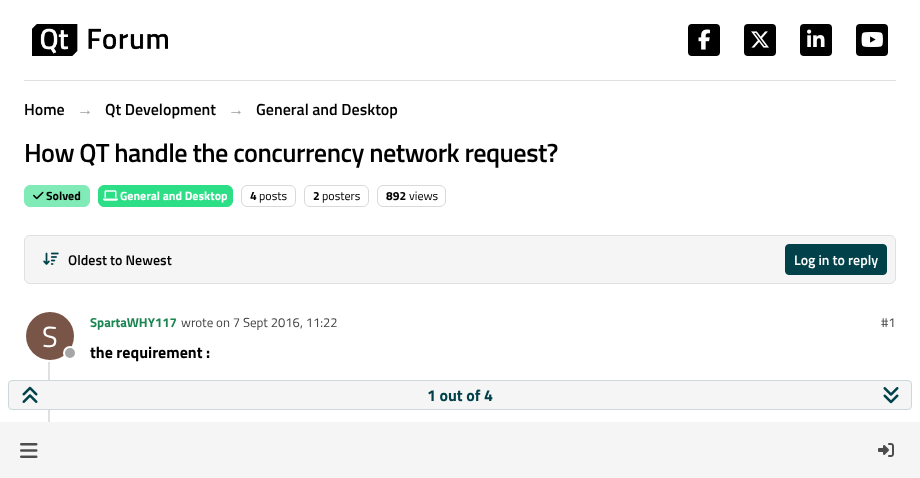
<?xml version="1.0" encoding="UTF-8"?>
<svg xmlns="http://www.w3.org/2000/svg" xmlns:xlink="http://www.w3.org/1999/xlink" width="920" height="478">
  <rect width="100%" height="100%" fill="#ffffff" />
  <rect x="24" y="80" width="872" height="1" fill="#e0e0e0" />
  <image x="32" y="24" width="136" height="32" xlink:href="image1.png" />
  <rect x="688" y="24" width="32" height="32" rx="4" fill="#000000" />
  <image x="698" y="29" width="12" height="21" xlink:href="image2.png" />
  <rect x="744" y="24" width="32" height="32" rx="4" fill="#000000" />
  <image x="751" y="31" width="18" height="17" xlink:href="image3.png" />
  <rect x="800" y="24" width="32" height="32" rx="4" fill="#000000" />
  <image x="807" y="29" width="18" height="18" xlink:href="image4.png" />
  <rect x="856" y="24" width="32" height="32" rx="4" fill="#000000" />
  <image x="861" y="32" width="22" height="15" xlink:href="image5.png" />
  <rect x="24.5" y="185.5" width="65" height="21" rx="5.5" fill="#80ebb6" stroke="#80ebb6" />
  <image x="33" y="191" width="11" height="9" xlink:href="image6.png" />
  <rect x="98.5" y="185.5" width="134" height="21" rx="5.5" fill="#2cde85" stroke="#2cde85" />
  <image x="103" y="190" width="15" height="11" xlink:href="image7.png" />
  <rect x="241.5" y="185.5" width="54" height="21" rx="5.5" fill="none" stroke="#d9d9d9" />
  <rect x="304.5" y="185.5" width="64" height="21" rx="5.5" fill="none" stroke="#d9d9d9" />
  <rect x="377.5" y="185.5" width="68" height="21" rx="5.5" fill="none" stroke="#d9d9d9" />
  <rect x="24.5" y="235.5" width="871" height="48" rx="5.5" fill="#f5f5f5" stroke="#e0e0e0" />
  <image x="43" y="252" width="16" height="13" xlink:href="image8.png" />
  <rect x="785.5" y="244.5" width="101" height="30" rx="3.5" fill="#00414a" stroke="#00414a" />
  <rect x="48" y="312" width="2" height="110" fill="#e0e0e0" />
  <circle cx="50" cy="336" r="25" fill="none" stroke="#ffffff" stroke-width="2" />
  <circle cx="50" cy="336" r="24" fill="#795548" />
  <circle cx="70" cy="353" r="6" fill="#a6a6a6" stroke="#ffffff" stroke-width="2" />
  <rect x="8.5" y="380.5" width="903" height="29" rx="3.5" fill="#f5f5f5" stroke="#ccd9db" />
  <image x="22" y="386" width="16" height="17" xlink:href="image9.png" />
  <image x="883" y="387" width="16" height="17" xlink:href="image10.png" />
  <rect y="422" width="920" height="56" fill="#f5f5f5" />
  <image x="20" y="443" width="18" height="15" xlink:href="image11.png" />
  <image x="878" y="443" width="16" height="14" xlink:href="image12.png" />
  <text x="24" y="115" style="font-family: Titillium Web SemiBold; font-size: 16px; font-weight: 600; fill: #000000">Home</text>
  <text x="77" y="115" style="font-family: Liberation Sans; font-size: 16px; font-weight: bold; fill: #9e9e9e">→</text>
  <text x="105" y="115" style="font-family: Titillium Web SemiBold; font-size: 16px; font-weight: 600; fill: #000000">Qt Development</text>
  <text x="228" y="115" style="font-family: Liberation Sans; font-size: 16px; font-weight: bold; fill: #9e9e9e">→</text>
  <text x="256" y="115" style="font-family: Titillium Web SemiBold; font-size: 16px; font-weight: 600; fill: #000000">General and Desktop</text>
  <text x="24" y="162" style="font-family: Titillium Web SemiBold; font-size: 26.3px; font-weight: 600; letter-spacing: -0.55px; fill: #000000">How QT handle the concurrency network request?</text>
  <text x="46" y="200" style="font-family: Titillium Web; font-size: 12px; font-weight: bold; fill: #000000">Solved</text>
  <text x="120" y="200" style="font-family: Titillium Web; font-size: 12px; font-weight: bold; fill: #ffffff">General and Desktop</text>
  <text x="250" y="200" style="font-family: Titillium Web; font-size: 12px; font-weight: bold; fill: #000000">4</text>
  <text x="259" y="200" style="font-family: Titillium Web; font-size: 12px; fill: #000000">posts</text>
  <text x="313" y="200" style="font-family: Titillium Web; font-size: 12px; font-weight: bold; fill: #000000">2</text>
  <text x="322" y="200" style="font-family: Titillium Web; font-size: 12px; fill: #000000">posters</text>
  <text x="386" y="200" style="font-family: Titillium Web; font-size: 12px; font-weight: bold; fill: #000000">892</text>
  <text x="409" y="200" style="font-family: Titillium Web; font-size: 12px; fill: #000000">views</text>
  <text x="68" y="265" style="font-family: Titillium Web SemiBold; font-size: 14px; font-weight: 600; fill: #000000">Oldest to Newest</text>
  <text x="794" y="265" style="font-family: Titillium Web SemiBold; font-size: 14px; font-weight: 600; fill: #ffffff">Log in to reply</text>
  <text x="42" y="347" style="font-family: Titillium Web; font-size: 29px; fill: #ffffff">S</text>
  <text x="90" y="327" style="font-family: Titillium Web; font-size: 13px; font-weight: bold; fill: #1a8550">SpartaWHY117</text>
  <text x="181" y="327" style="font-family: Titillium Web; font-size: 13px; fill: #404040">wrote on 7 Sept 2016, 11:22</text>
  <text x="881" y="327" style="font-family: Titillium Web; font-size: 13px; fill: #404040">#1</text>
  <text x="90" y="358" style="font-family: Titillium Web; font-size: 16px; font-weight: bold; fill: #000000">the requirement :</text>
  <text x="427" y="401" style="font-family: Titillium Web; font-size: 16px; font-weight: bold; fill: #00414a">1 out of 4</text>
</svg>
